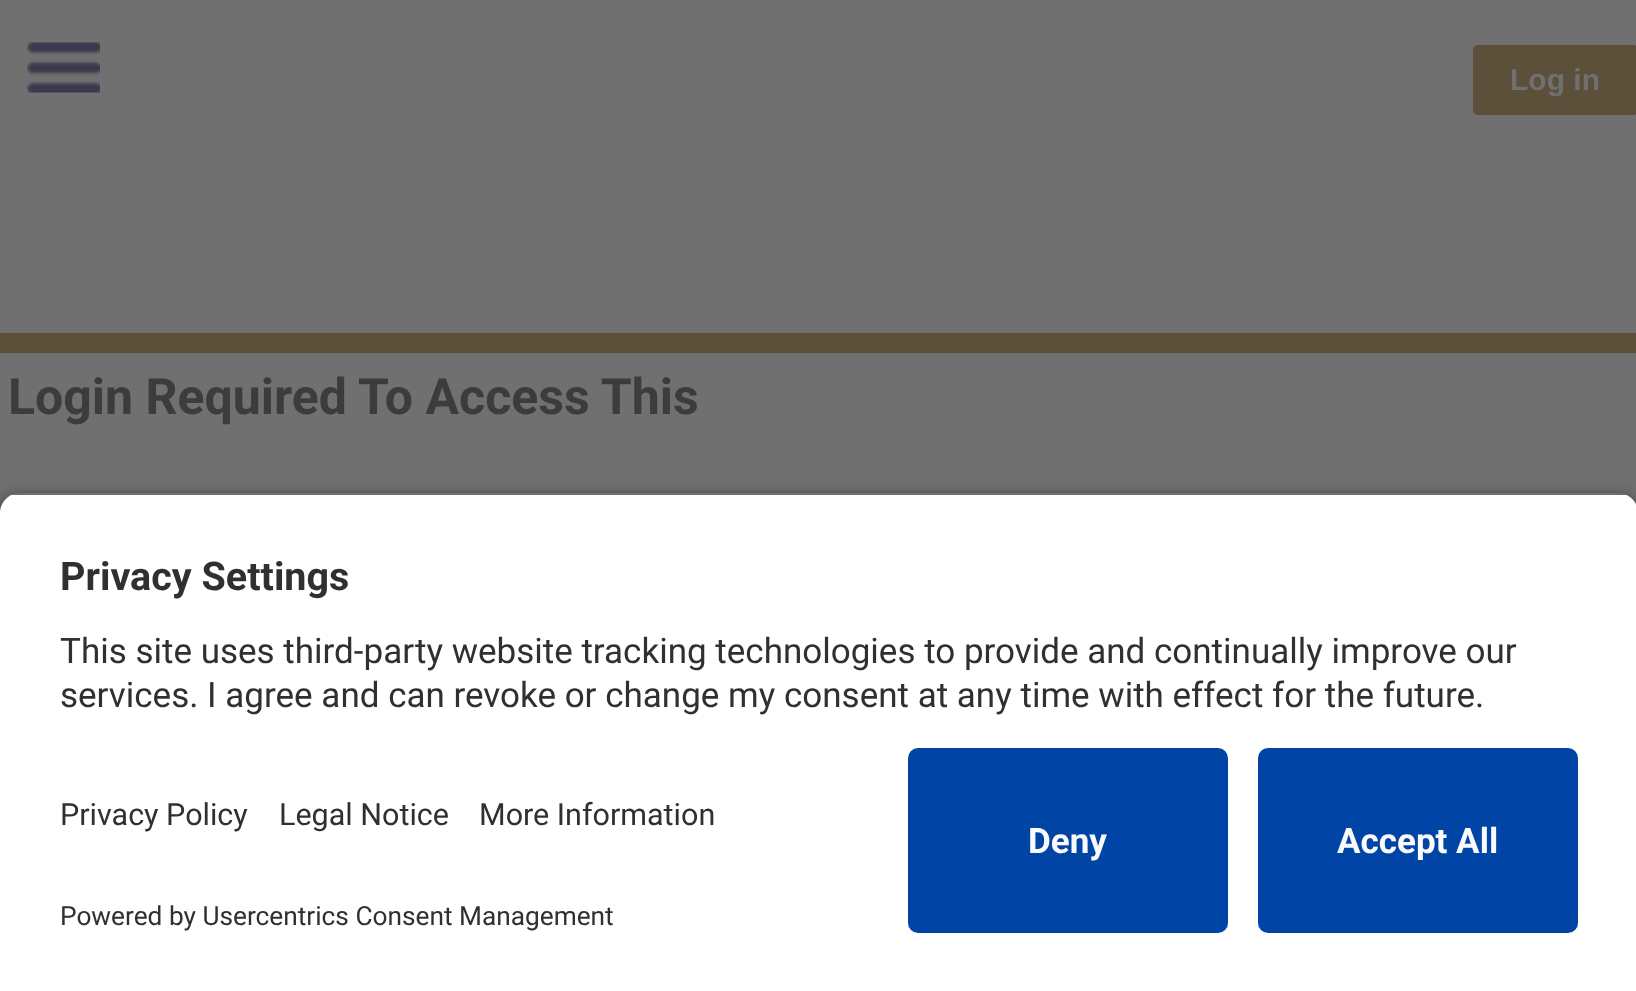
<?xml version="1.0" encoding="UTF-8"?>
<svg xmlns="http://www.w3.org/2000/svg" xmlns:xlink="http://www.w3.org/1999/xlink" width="1636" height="991">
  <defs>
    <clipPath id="clip1"><path d="M 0 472 h 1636 v 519 h -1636 z m 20 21 h 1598 c 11 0 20 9 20 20 v 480 h -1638 v -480 c 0 -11 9 -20 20 -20 z" clip-rule="evenodd" /></clipPath>
    <clipPath id="clip2"><path d="M 20 493 h 1598 c 11 0 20 9 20 20 v 215 h -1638 v -215 c 0 -11 9 -20 20 -20 z" /></clipPath>
  </defs>
  <rect width="100%" height="100%" fill="#707070" />
  <rect x="1473" y="45" width="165" height="70" rx="5" fill="#5c503a" />
  <image x="27" y="42" width="73" height="51" xlink:href="image1.png" />
  <rect y="333" width="1636" height="20" fill="#5c503a" />
  <g clip-path="url(#clip1)">
    <rect y="500" width="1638" height="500" rx="20" fill="#000000" fill-opacity="0.8" filter="blur(9px)" />
  </g>
  <g clip-path="url(#clip2)">
    <rect y="495" width="1636" height="233" fill="#ffffff" />
  </g>
  <rect y="728" width="1636" height="263" fill="#ffffff" />
  <rect x="908" y="748" width="320" height="185" rx="10" fill="#0045a5" />
  <rect x="1258" y="748" width="320" height="185" rx="10" fill="#0045a5" />
  <text x="1510" y="90" style="font-family: Liberation Sans; font-size: 30px; font-weight: bold; fill: #707070">Log in</text>
  <text x="8" y="414" style="font-family: Roboto; font-size: 50px; font-weight: bold; fill: #3d3c3c">Login Required To Access This</text>
  <text x="60" y="590" style="font-family: Roboto; font-size: 39.5px; font-weight: bold; fill: #303030">Privacy Settings</text>
  <text x="60" y="663" style="font-family: Roboto; font-size: 35px; fill: #303030">This site uses third-party website tracking technologies to provide and continually improve our</text>
  <text x="60" y="707" style="font-family: Roboto; font-size: 35px; fill: #303030">services. I agree and can revoke or change my consent at any time with effect for the future.</text>
  <text x="60" y="825" style="font-family: Roboto; font-size: 30.5px; fill: #303030">Privacy Policy</text>
  <text x="279" y="825" style="font-family: Roboto; font-size: 30.5px; fill: #303030">Legal Notice</text>
  <text x="479" y="825" style="font-family: Roboto; font-size: 30.5px; fill: #303030">More Information</text>
  <text x="60" y="925" style="font-family: Roboto; font-size: 26.25px; fill: #303030">Powered by Usercentrics Consent Management</text>
  <text x="1028" y="853" style="font-family: Roboto; font-size: 35px; font-weight: bold; fill: #fafafa">Deny</text>
  <text x="1337" y="853" style="font-family: Roboto; font-size: 35px; font-weight: bold; fill: #fafafa">Accept All</text>
</svg>
